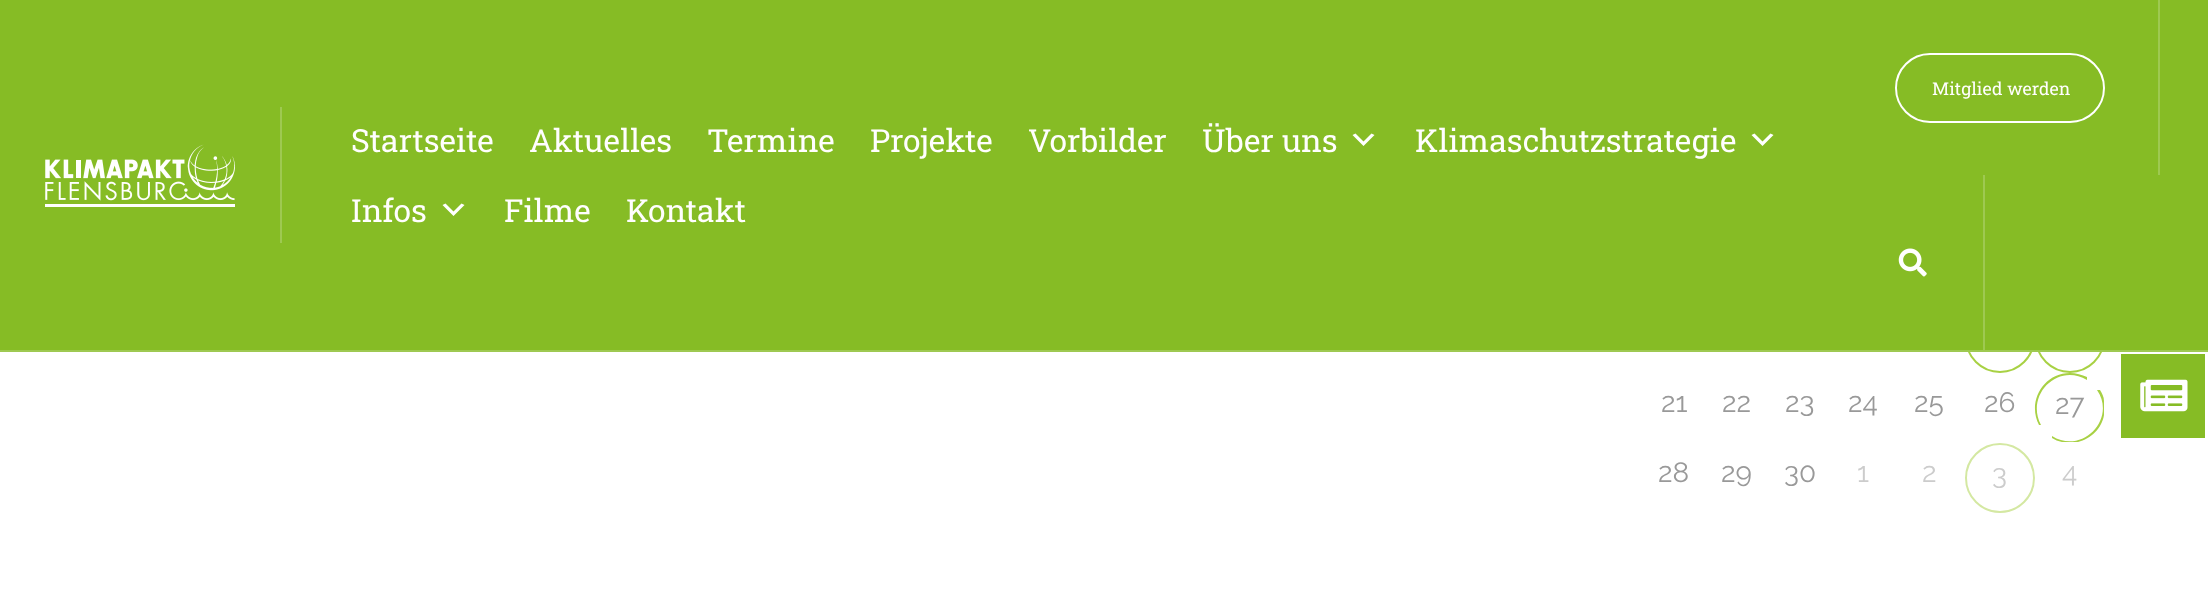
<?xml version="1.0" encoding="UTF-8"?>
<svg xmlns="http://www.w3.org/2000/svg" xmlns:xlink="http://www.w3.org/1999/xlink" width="2208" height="607">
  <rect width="100%" height="100%" fill="#ffffff" />
  <circle cx="2000" cy="338" r="34" fill="none" stroke="#a8d144" stroke-width="2" />
  <circle cx="2070" cy="338" r="34" fill="none" stroke="#a8d144" stroke-width="2" />
  <rect width="2208" height="350" fill="#86bc25" />
  <rect y="350" width="2208" height="2" fill="#9ec951" />
  <rect x="280" y="107" width="2" height="136" fill="#9ec951" />
  <image x="45" y="144" width="190" height="63" xlink:href="image1.png" />
  <rect x="2158" width="2" height="175" fill="#9ec951" />
  <rect x="1896" y="54" width="208" height="68" rx="34" fill="none" stroke="#ffffff" stroke-width="2" />
  <rect x="1983" y="175" width="2" height="175" fill="#9ec951" />
  <image x="1898" y="248" width="29" height="29" xlink:href="image2.png" />
  <path d="M 1355.5 133.5 l 8 8 l 8 -8 l 3 1.5 l -11 11 l -11 -11 z" fill="#ffffff" />
  <path d="M 1754.5 133.5 l 8 8 l 8 -8 l 3 1.5 l -11 11 l -11 -11 z" fill="#ffffff" />
  <path d="M 445.5 203.5 l 8 8 l 8 -8 l 3 1.5 l -11 11 l -11 -11 z" fill="#ffffff" />
  <path d="M 2062 442 c -4 -1 -7 -2 -10 -4 v -2 c 30 19 65 -17 45 -46 h 3 c 2 3 4 7 4 11 v 14 c -2 13 -13 24 -26 27 z m 8 -69 c -27 0 -43 29 -31 52 h 2 c -16 -30 17 -63 46 -45 v -3 c -5 -2 -11 -4 -17 -4 z" fill="#a8d144" fill-rule="evenodd" />
  <circle cx="2000" cy="478" r="34" fill="none" stroke="#d4e8a2" stroke-width="2" />
  <rect x="2121" y="354" width="84" height="84" fill="#86bc25" />
  <image x="2140" y="379" width="48" height="33" xlink:href="image3.png" />
  <text x="1932" y="95" style="font-family: Roboto Slab; font-size: 17.75px; fill: #fffefe">Mitglied werden</text>
  <text x="351" y="152" style="font-family: Roboto Slab; font-size: 31.8px; fill: #fffefe">Startseite</text>
  <text x="529" y="152" style="font-family: Roboto Slab; font-size: 31.8px; fill: #fffefe">Aktuelles</text>
  <text x="707" y="152" style="font-family: Roboto Slab; font-size: 31.8px; fill: #fffefe">Termine</text>
  <text x="870" y="152" style="font-family: Roboto Slab; font-size: 31.8px; fill: #fffefe">Projekte</text>
  <text x="1028" y="152" style="font-family: Roboto Slab; font-size: 31.8px; fill: #fffefe">Vorbilder</text>
  <text x="1202" y="152" style="font-family: Roboto Slab; font-size: 31.8px; fill: #fffefe">Über uns</text>
  <text x="1415" y="152" style="font-family: Roboto Slab; font-size: 31.8px; fill: #fffefe">Klimaschutzstrategie</text>
  <text x="351" y="222" style="font-family: Roboto Slab; font-size: 31.8px; fill: #fffefe">Infos</text>
  <text x="504" y="222" style="font-family: Roboto Slab; font-size: 31.8px; fill: #fffefe">Filme</text>
  <text x="626" y="222" style="font-family: Roboto Slab; font-size: 31.8px; fill: #fffefe">Kontakt</text>
  <text x="1661" y="412" style="font-family: Raleway; font-size: 28px; fill: #999999">21</text>
  <text x="1722" y="412" style="font-family: Raleway; font-size: 28px; fill: #999999">22</text>
  <text x="1785" y="412" style="font-family: Raleway; font-size: 28px; fill: #999999">23</text>
  <text x="1848" y="412" style="font-family: Raleway; font-size: 28px; fill: #999999">24</text>
  <text x="1914" y="412" style="font-family: Raleway; font-size: 28px; fill: #999999">25</text>
  <text x="1984" y="412" style="font-family: Raleway; font-size: 28px; fill: #999999">26</text>
  <text x="2055" y="414" style="font-family: Raleway; font-size: 28px; fill: #999999">27</text>
  <text x="1658" y="482" style="font-family: Raleway; font-size: 28px; fill: #999999">28</text>
  <text x="1721" y="482" style="font-family: Raleway; font-size: 28px; fill: #999999">29</text>
  <text x="1784" y="482" style="font-family: Raleway; font-size: 28px; fill: #999999">30</text>
  <text x="1857" y="482" style="font-family: Raleway; font-size: 28px; fill: #cccccc">1</text>
  <text x="1922" y="482" style="font-family: Raleway; font-size: 28px; fill: #cccccc">2</text>
  <text x="1992" y="484" style="font-family: Raleway; font-size: 28px; fill: #cccccc">3</text>
  <text x="2062" y="482" style="font-family: Raleway; font-size: 28px; fill: #cccccc">4</text>
</svg>
